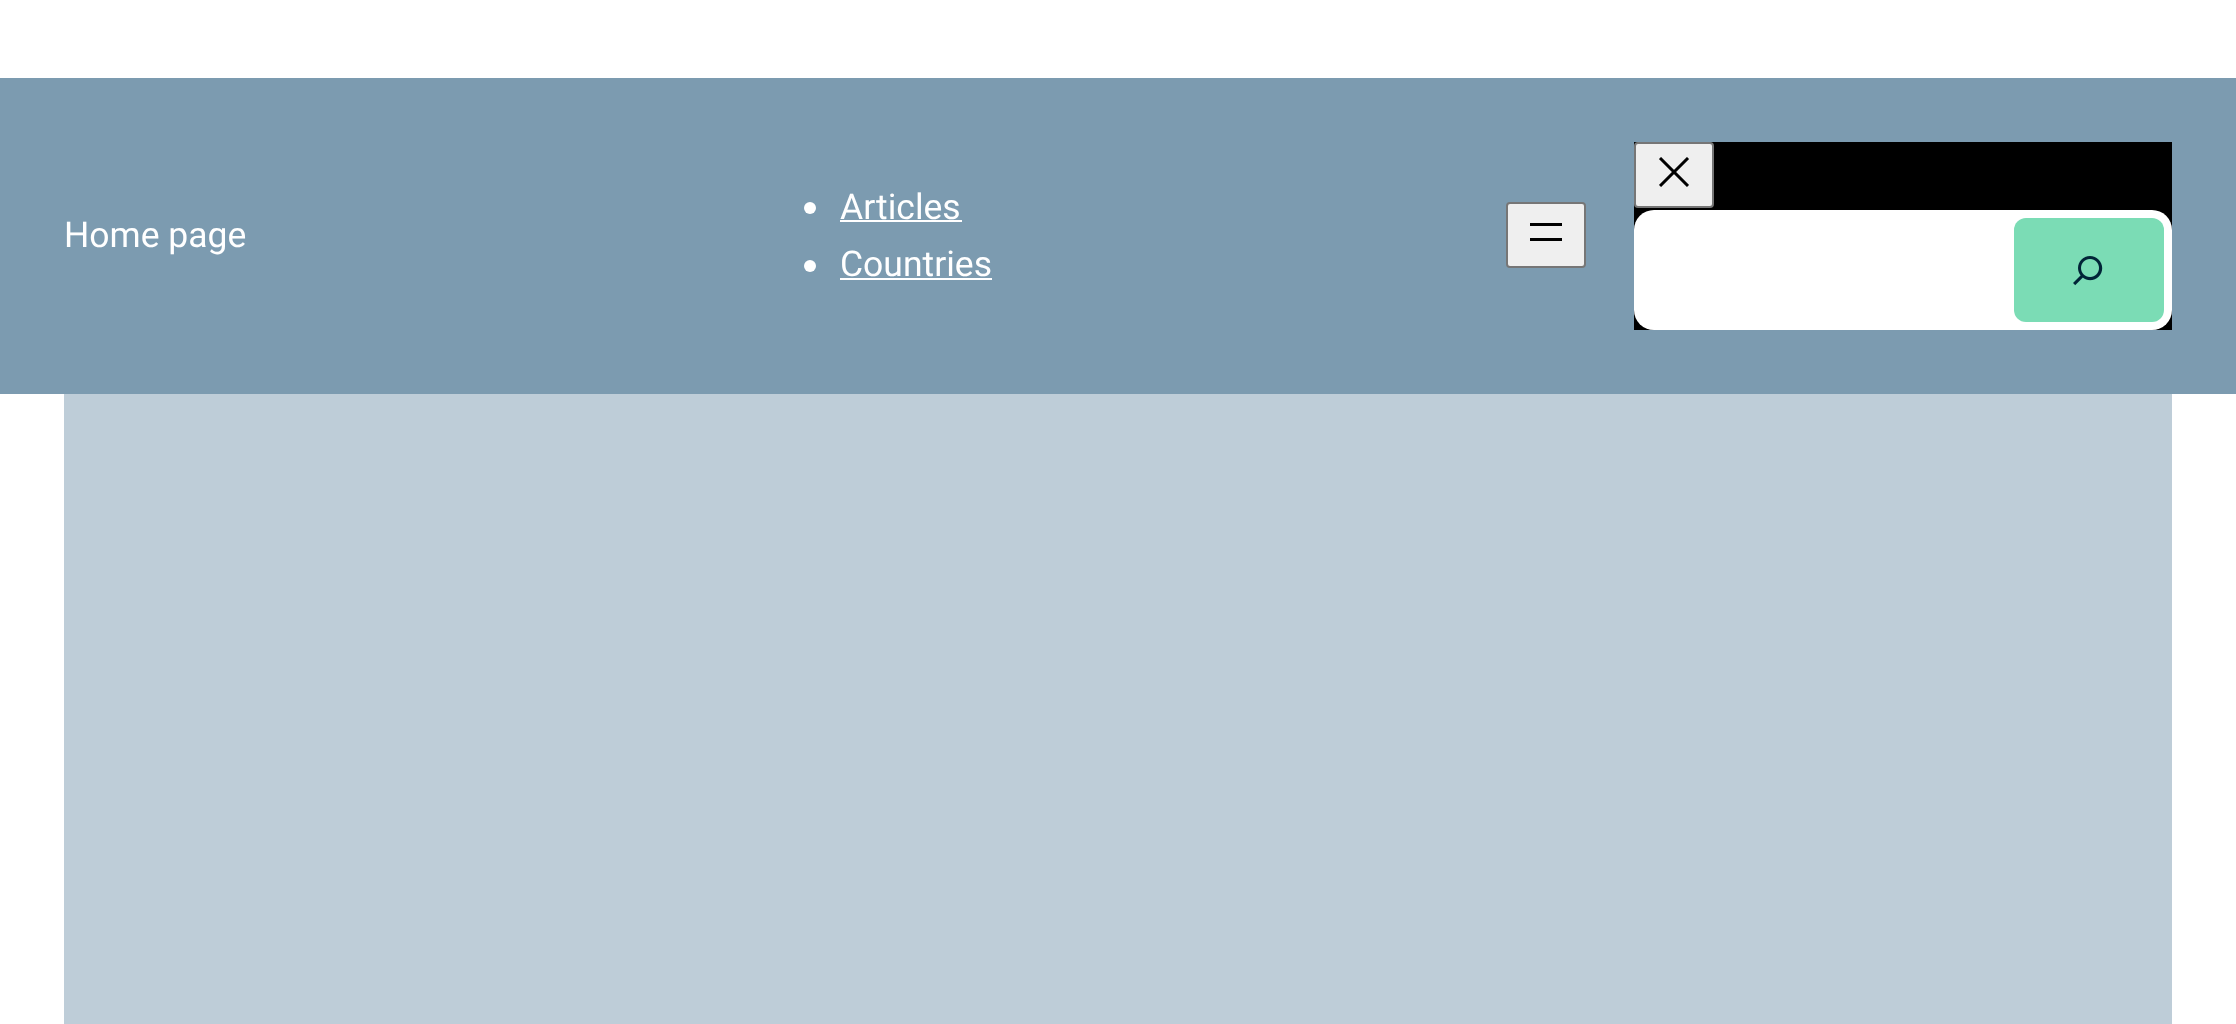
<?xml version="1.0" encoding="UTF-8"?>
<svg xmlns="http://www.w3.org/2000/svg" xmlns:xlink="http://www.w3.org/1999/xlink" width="2236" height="1024">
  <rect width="100%" height="100%" fill="#ffffff" />
  <rect y="78" width="2236" height="316" fill="#7c9bb0" />
  <circle cx="810" cy="208" r="6" fill="#ffffff" />
  <rect x="840" y="220" width="122" height="2" fill="#ffffff" />
  <circle cx="810" cy="266" r="6" fill="#ffffff" />
  <rect x="840" y="278" width="152" height="2" fill="#ffffff" />
  <rect x="1507" y="203" width="78" height="64" rx="3" fill="#efefef" stroke="#767676" stroke-width="2" />
  <rect x="1530" y="223" width="32" height="3" fill="#000000" />
  <rect x="1530" y="238" width="32" height="3" fill="#000000" />
  <rect x="1634" y="142" width="538" height="188" fill="#000000" />
  <rect x="1635" y="143" width="78" height="64" rx="3" fill="#efefef" stroke="#767676" stroke-width="2" />
  <image x="1659" y="157" width="30" height="30" xlink:href="image1.png" />
  <rect x="1634" y="210" width="538" height="120" rx="20" fill="#ffffff" />
  <rect x="2014" y="218" width="150" height="104" rx="12" fill="#7bdcb5" />
  <image x="2073" y="256" width="30" height="30" xlink:href="image2.png" />
  <rect x="64" y="394" width="2108" height="630" fill="#becdd8" />
  <text x="64" y="247" style="font-family: Roboto; font-size: 35.5px; fill: #ffffff">Home page</text>
  <text x="840" y="219" style="font-family: Roboto; font-size: 35.5px; fill: #ffffff">Articles</text>
  <text x="840" y="276" style="font-family: Roboto; font-size: 35.5px; fill: #ffffff">Countries</text>
</svg>
